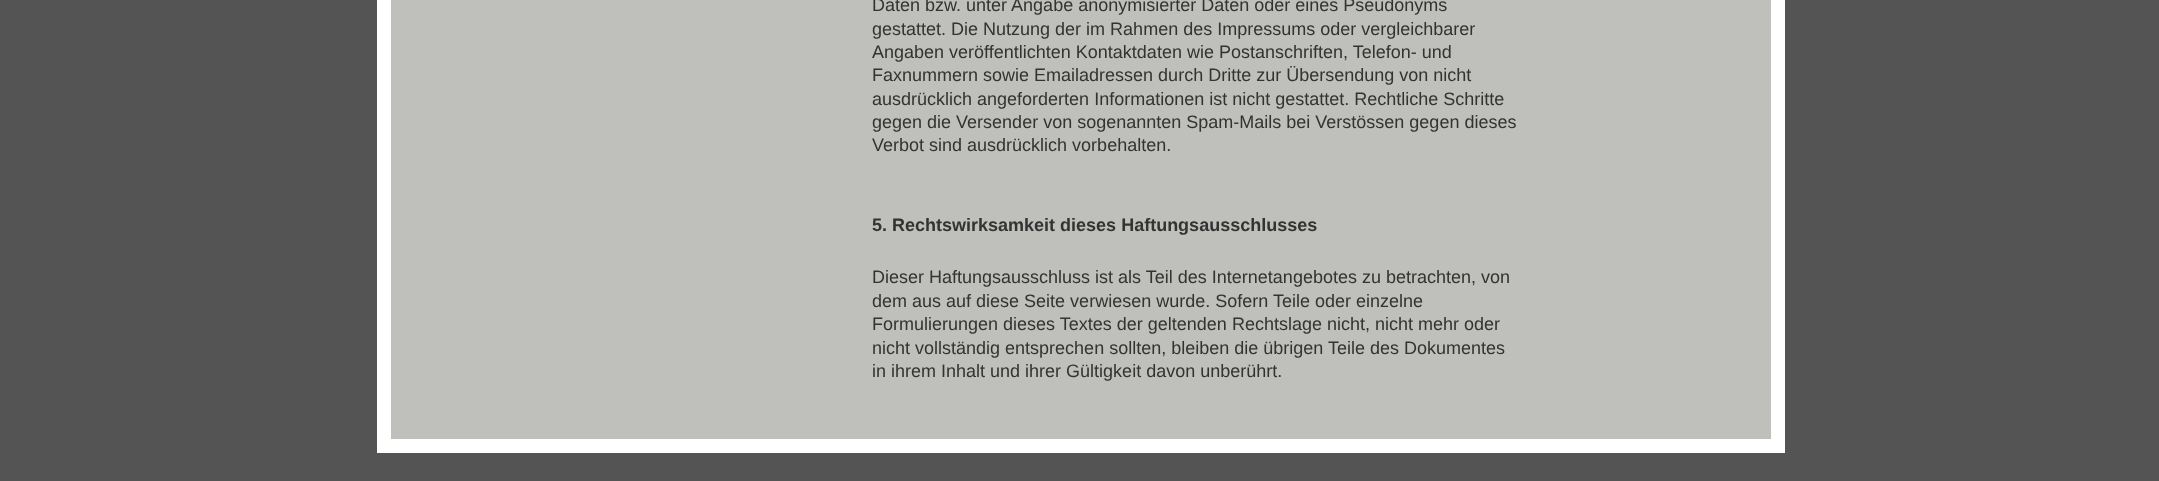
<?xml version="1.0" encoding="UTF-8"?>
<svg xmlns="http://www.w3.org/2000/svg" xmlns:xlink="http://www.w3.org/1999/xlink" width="2159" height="481">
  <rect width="100%" height="100%" fill="#545454" />
  <rect x="384" y="-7" width="1394" height="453" fill="#bfbfbc" stroke="#ffffff" stroke-width="14" />
  <text x="872" y="11" style="font-family: Liberation Sans; font-size: 18px; fill: #333333">Daten bzw. unter Angabe anonymisierter Daten oder eines Pseudonyms</text>
  <text x="872" y="35" style="font-family: Liberation Sans; font-size: 18px; fill: #333333">gestattet. Die Nutzung der im Rahmen des Impressums oder vergleichbarer</text>
  <text x="872" y="58" style="font-family: Liberation Sans; font-size: 18px; fill: #333333">Angaben veröffentlichten Kontaktdaten wie Postanschriften, Telefon- und</text>
  <text x="872" y="81" style="font-family: Liberation Sans; font-size: 18px; fill: #333333">Faxnummern sowie Emailadressen durch Dritte zur Übersendung von nicht</text>
  <text x="872" y="105" style="font-family: Liberation Sans; font-size: 18px; fill: #333333">ausdrücklich angeforderten Informationen ist nicht gestattet. Rechtliche Schritte</text>
  <text x="872" y="128" style="font-family: Liberation Sans; font-size: 18px; fill: #333333">gegen die Versender von sogenannten Spam-Mails bei Verstössen gegen dieses</text>
  <text x="872" y="151" style="font-family: Liberation Sans; font-size: 18px; fill: #333333">Verbot sind ausdrücklich vorbehalten.</text>
  <text x="872" y="231" style="font-family: Liberation Sans; font-size: 18px; font-weight: bold; fill: #333333">5. Rechtswirksamkeit dieses Haftungsausschlusses</text>
  <text x="872" y="283" style="font-family: Liberation Sans; font-size: 18px; fill: #333333">Dieser Haftungsausschluss ist als Teil des Internetangebotes zu betrachten, von</text>
  <text x="872" y="307" style="font-family: Liberation Sans; font-size: 18px; fill: #333333">dem aus auf diese Seite verwiesen wurde. Sofern Teile oder einzelne</text>
  <text x="872" y="330" style="font-family: Liberation Sans; font-size: 18px; fill: #333333">Formulierungen dieses Textes der geltenden Rechtslage nicht, nicht mehr oder</text>
  <text x="872" y="354" style="font-family: Liberation Sans; font-size: 18px; fill: #333333">nicht vollständig entsprechen sollten, bleiben die übrigen Teile des Dokumentes</text>
  <text x="872" y="377" style="font-family: Liberation Sans; font-size: 18px; fill: #333333">in ihrem Inhalt und ihrer Gültigkeit davon unberührt.</text>
</svg>
